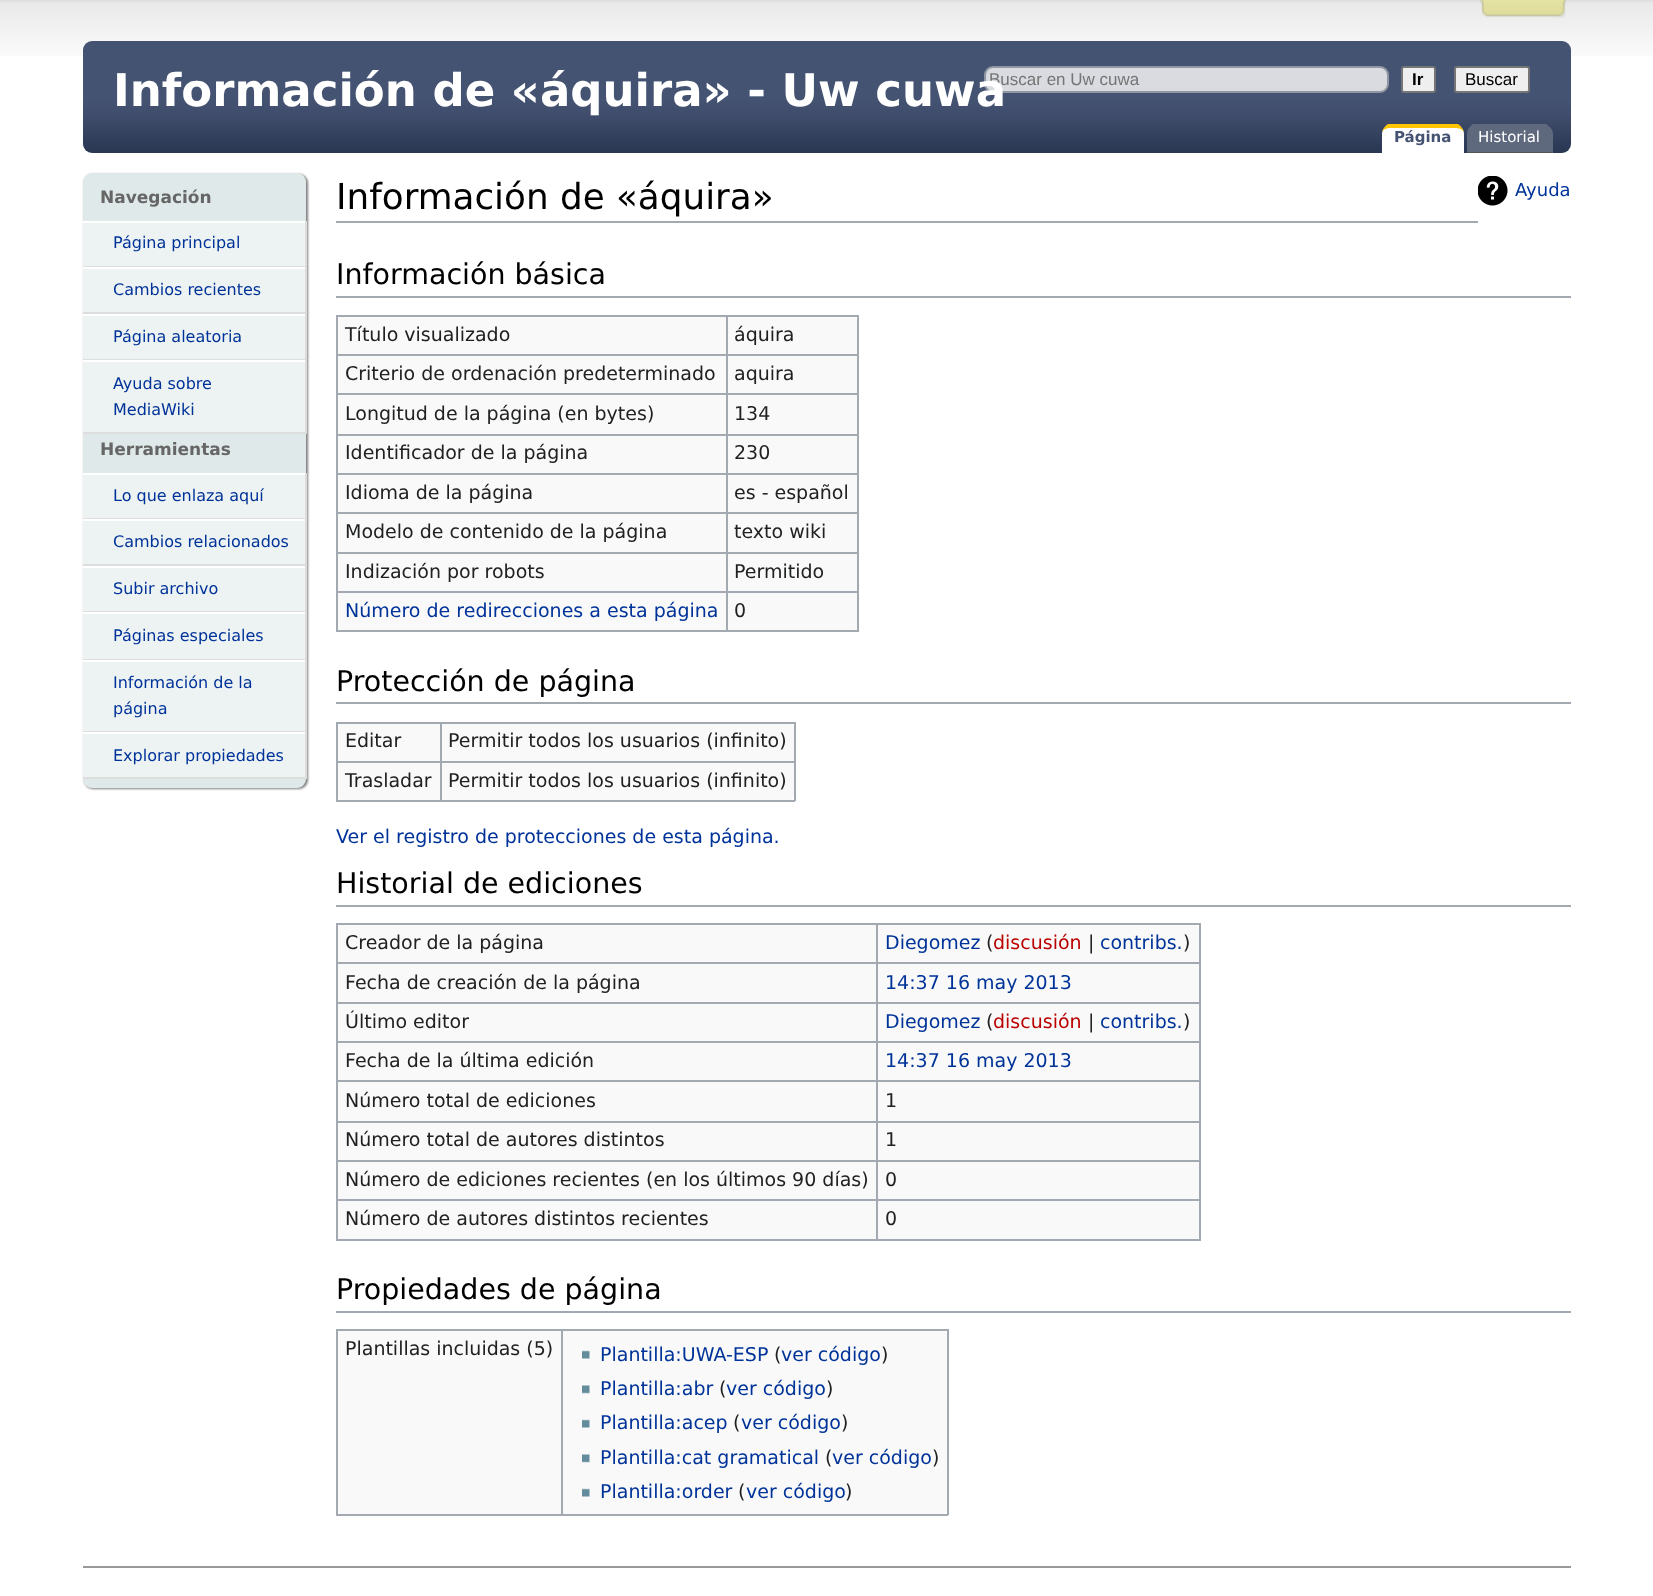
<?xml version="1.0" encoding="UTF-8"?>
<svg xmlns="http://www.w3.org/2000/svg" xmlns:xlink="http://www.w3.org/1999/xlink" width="1653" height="1596">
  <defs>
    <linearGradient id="g1" gradientUnits="userSpaceOnUse" x1="827" y1="40" x2="827" y2="153"><stop offset="0" stop-color="#455372" /><stop offset="0.52" stop-color="#455372" /><stop offset="0.67" stop-color="#3f4c6b" /><stop offset="1" stop-color="#2a3753" /></linearGradient>
  </defs>
  <rect width="100%" height="100%" fill="#ffffff" />
  <image x="0" y="0" width="1653" height="56" xlink:href="image1.png" />
  <image x="1480" y="0" width="11" height="18" xlink:href="image2.png" />
  <image x="1491" y="0" width="68" height="18" xlink:href="image3.png" />
  <image x="1556" y="0" width="10" height="18" xlink:href="image4.png" />
  <rect x="83" y="41" width="1488" height="112" rx="9" fill="url(#g1)" />
  <rect x="985" y="67" width="403" height="25" rx="8" fill="#d9dbe1" stroke="#9097a2" stroke-width="2" />
  <rect x="1402" y="67" width="33" height="25" rx="2" fill="#efefef" stroke="#767676" stroke-width="2" />
  <rect x="1455" y="67" width="74" height="25" rx="2" fill="#efefef" stroke="#767676" stroke-width="2" />
  <path d="M 1391 125 h 64 c 5 0 9 4 9 9 v 19 h -82 v -19 c 0 -5 4 -9 9 -9 z" fill="#ffffff" />
  <path d="M 1390 128 c -4 0 -8 2 -8 6 c 0 -4 3 -8 6 -10 h 70 c 3 2 6 6 6 10 c 0 -4 -4 -6 -9 -6 z" fill="#ffc600" />
  <path d="M 1476 125 h 68 c 5 0 9 4 9 9 v 19 h -86 v -19 c 0 -5 4 -9 9 -9 z" fill="#5f697e" />
  <path d="M 1476 128 h 68 c 4 0 8 2 8 6 c 0 -4 -3 -8 -6 -10 h -73 c -3 2 -6 6 -6 10 c 0 -4 4 -6 9 -6 z" fill="#5f697e" />
  <rect x="1467" y="152" width="85" height="1" fill="#515358" />
  <rect x="84" y="174" width="224" height="615" rx="9" fill="#808080" filter="blur(1px)" />
  <rect x="83" y="173" width="223" height="615" rx="9" fill="#e0e9e9" />
  <rect x="83" y="223" width="222" height="43" fill="#edf2f2" />
  <rect x="83" y="221" width="223" height="2" fill="#ffffff" />
  <rect x="305" y="221" width="2" height="46" fill="#dddddd" />
  <rect x="83" y="266" width="223" height="1" fill="#dddddd" />
  <rect x="83" y="269" width="222" height="43" fill="#edf2f2" />
  <rect x="83" y="267" width="223" height="2" fill="#ffffff" />
  <rect x="305" y="267" width="2" height="47" fill="#dddddd" />
  <rect x="83" y="312" width="223" height="2" fill="#dddddd" />
  <rect x="83" y="316" width="222" height="43" fill="#edf2f2" />
  <rect x="83" y="314" width="223" height="2" fill="#ffffff" />
  <rect x="305" y="314" width="2" height="46" fill="#dddddd" />
  <rect x="83" y="359" width="223" height="1" fill="#dddddd" />
  <rect x="83" y="362" width="222" height="70" fill="#edf2f2" />
  <rect x="83" y="360" width="223" height="2" fill="#ffffff" />
  <rect x="305" y="360" width="2" height="74" fill="#dddddd" />
  <rect x="83" y="432" width="223" height="2" fill="#dddddd" />
  <rect x="83" y="475" width="222" height="43" fill="#edf2f2" />
  <rect x="83" y="473" width="223" height="2" fill="#ffffff" />
  <rect x="305" y="473" width="2" height="46" fill="#dddddd" />
  <rect x="83" y="518" width="223" height="1" fill="#dddddd" />
  <rect x="83" y="521" width="222" height="43" fill="#edf2f2" />
  <rect x="83" y="519" width="223" height="2" fill="#ffffff" />
  <rect x="305" y="519" width="2" height="47" fill="#dddddd" />
  <rect x="83" y="564" width="223" height="2" fill="#dddddd" />
  <rect x="83" y="568" width="222" height="43" fill="#edf2f2" />
  <rect x="83" y="566" width="223" height="2" fill="#ffffff" />
  <rect x="305" y="566" width="2" height="46" fill="#dddddd" />
  <rect x="83" y="611" width="223" height="1" fill="#dddddd" />
  <rect x="83" y="614" width="222" height="45" fill="#edf2f2" />
  <rect x="83" y="612" width="223" height="2" fill="#ffffff" />
  <rect x="305" y="612" width="2" height="48" fill="#dddddd" />
  <rect x="83" y="659" width="223" height="1" fill="#dddddd" />
  <rect x="83" y="662" width="222" height="69" fill="#edf2f2" />
  <rect x="83" y="660" width="223" height="2" fill="#ffffff" />
  <rect x="305" y="660" width="2" height="72" fill="#dddddd" />
  <rect x="83" y="731" width="223" height="1" fill="#dddddd" />
  <rect x="83" y="734" width="222" height="43" fill="#edf2f2" />
  <rect x="83" y="732" width="223" height="2" fill="#ffffff" />
  <rect x="305" y="732" width="2" height="47" fill="#dddddd" />
  <rect x="83" y="777" width="223" height="2" fill="#dddddd" />
  <rect x="336" y="221" width="1142" height="2" fill="#a2a9b1" />
  <image x="1478" y="176" width="30" height="30" xlink:href="image5.png" />
  <rect x="336" y="296" width="1235" height="2" fill="#a2a9b1" />
  <rect x="336" y="315" width="522" height="317" rx="9" fill="#f9f9f9" />
  <rect x="726" y="315" width="132" height="2" fill="#a2a9b1" />
  <rect x="726" y="354" width="132" height="2" fill="#a2a9b1" />
  <rect x="726" y="393" width="132" height="2" fill="#a2a9b1" />
  <rect x="726" y="434" width="132" height="2" fill="#a2a9b1" />
  <rect x="726" y="473" width="132" height="2" fill="#a2a9b1" />
  <rect x="726" y="512" width="132" height="2" fill="#a2a9b1" />
  <rect x="726" y="552" width="132" height="2" fill="#a2a9b1" />
  <rect x="726" y="591" width="132" height="2" fill="#a2a9b1" />
  <rect x="857" y="591" width="2" height="41" fill="#a2a9b1" />
  <rect x="726" y="630" width="132" height="2" fill="#a2a9b1" />
  <rect x="726" y="591" width="2" height="41" fill="#a2a9b1" />
  <rect x="336" y="591" width="392" height="2" fill="#a2a9b1" />
  <rect x="726" y="552" width="2" height="41" fill="#a2a9b1" />
  <rect x="336" y="552" width="392" height="2" fill="#a2a9b1" />
  <rect x="726" y="512" width="2" height="42" fill="#a2a9b1" />
  <rect x="336" y="512" width="392" height="2" fill="#a2a9b1" />
  <rect x="726" y="473" width="2" height="40" fill="#a2a9b1" />
  <rect x="336" y="473" width="392" height="2" fill="#a2a9b1" />
  <rect x="726" y="434" width="2" height="40" fill="#a2a9b1" />
  <rect x="336" y="434" width="392" height="2" fill="#a2a9b1" />
  <rect x="726" y="393" width="2" height="42" fill="#a2a9b1" />
  <rect x="336" y="393" width="392" height="2" fill="#a2a9b1" />
  <rect x="726" y="354" width="2" height="41" fill="#a2a9b1" />
  <rect x="336" y="354" width="392" height="2" fill="#a2a9b1" />
  <rect x="726" y="315" width="2" height="41" fill="#a2a9b1" />
  <rect x="336" y="315" width="392" height="2" fill="#a2a9b1" />
  <rect x="336" y="630" width="392" height="2" fill="#a2a9b1" />
  <rect x="336" y="591" width="2" height="41" fill="#a2a9b1" />
  <rect x="336" y="552" width="2" height="41" fill="#a2a9b1" />
  <rect x="336" y="512" width="2" height="42" fill="#a2a9b1" />
  <rect x="336" y="473" width="2" height="40" fill="#a2a9b1" />
  <rect x="336" y="434" width="2" height="40" fill="#a2a9b1" />
  <rect x="336" y="393" width="2" height="42" fill="#a2a9b1" />
  <rect x="336" y="354" width="2" height="41" fill="#a2a9b1" />
  <rect x="336" y="315" width="2" height="41" fill="#a2a9b1" />
  <rect x="857" y="552" width="2" height="41" fill="#a2a9b1" />
  <rect x="857" y="512" width="2" height="42" fill="#a2a9b1" />
  <rect x="857" y="473" width="2" height="40" fill="#a2a9b1" />
  <rect x="857" y="434" width="2" height="40" fill="#a2a9b1" />
  <rect x="857" y="393" width="2" height="42" fill="#a2a9b1" />
  <rect x="857" y="354" width="2" height="41" fill="#a2a9b1" />
  <rect x="857" y="315" width="2" height="41" fill="#a2a9b1" />
  <rect x="336" y="702" width="1235" height="2" fill="#a2a9b1" />
  <rect x="336" y="722" width="459" height="79" rx="9" fill="#f9f9f9" />
  <rect x="440" y="722" width="355" height="2" fill="#a2a9b1" />
  <rect x="440" y="761" width="355" height="2" fill="#a2a9b1" />
  <rect x="794" y="761" width="2" height="40" fill="#a2a9b1" />
  <rect x="440" y="800" width="355" height="2" fill="#a2a9b1" />
  <rect x="440" y="761" width="2" height="40" fill="#a2a9b1" />
  <rect x="336" y="761" width="105" height="2" fill="#a2a9b1" />
  <rect x="440" y="722" width="2" height="40" fill="#a2a9b1" />
  <rect x="336" y="722" width="105" height="2" fill="#a2a9b1" />
  <rect x="336" y="800" width="105" height="2" fill="#a2a9b1" />
  <rect x="336" y="761" width="2" height="40" fill="#a2a9b1" />
  <rect x="336" y="722" width="2" height="40" fill="#a2a9b1" />
  <rect x="794" y="722" width="2" height="40" fill="#a2a9b1" />
  <rect x="336" y="905" width="1235" height="2" fill="#a2a9b1" />
  <rect x="336" y="923" width="864" height="318" rx="9" fill="#f9f9f9" />
  <rect x="876" y="923" width="324" height="2" fill="#a2a9b1" />
  <rect x="876" y="962" width="324" height="2" fill="#a2a9b1" />
  <rect x="876" y="1002" width="324" height="2" fill="#a2a9b1" />
  <rect x="876" y="1041" width="324" height="2" fill="#a2a9b1" />
  <rect x="876" y="1080" width="324" height="2" fill="#a2a9b1" />
  <rect x="876" y="1121" width="324" height="2" fill="#a2a9b1" />
  <rect x="876" y="1160" width="324" height="2" fill="#a2a9b1" />
  <rect x="876" y="1199" width="324" height="2" fill="#a2a9b1" />
  <rect x="1199" y="1199" width="2" height="42" fill="#a2a9b1" />
  <rect x="876" y="1239" width="324" height="2" fill="#a2a9b1" />
  <rect x="876" y="1199" width="2" height="42" fill="#a2a9b1" />
  <rect x="336" y="1199" width="542" height="2" fill="#a2a9b1" />
  <rect x="876" y="1160" width="2" height="40" fill="#a2a9b1" />
  <rect x="336" y="1160" width="542" height="2" fill="#a2a9b1" />
  <rect x="876" y="1121" width="2" height="40" fill="#a2a9b1" />
  <rect x="336" y="1121" width="542" height="2" fill="#a2a9b1" />
  <rect x="876" y="1080" width="2" height="42" fill="#a2a9b1" />
  <rect x="336" y="1080" width="542" height="2" fill="#a2a9b1" />
  <rect x="876" y="1041" width="2" height="41" fill="#a2a9b1" />
  <rect x="336" y="1041" width="542" height="2" fill="#a2a9b1" />
  <rect x="876" y="1002" width="2" height="41" fill="#a2a9b1" />
  <rect x="336" y="1002" width="542" height="2" fill="#a2a9b1" />
  <rect x="876" y="962" width="2" height="42" fill="#a2a9b1" />
  <rect x="336" y="962" width="542" height="2" fill="#a2a9b1" />
  <rect x="876" y="923" width="2" height="40" fill="#a2a9b1" />
  <rect x="336" y="923" width="542" height="2" fill="#a2a9b1" />
  <rect x="336" y="1239" width="542" height="2" fill="#a2a9b1" />
  <rect x="336" y="1199" width="2" height="42" fill="#a2a9b1" />
  <rect x="336" y="1160" width="2" height="40" fill="#a2a9b1" />
  <rect x="336" y="1121" width="2" height="40" fill="#a2a9b1" />
  <rect x="336" y="1080" width="2" height="42" fill="#a2a9b1" />
  <rect x="336" y="1041" width="2" height="41" fill="#a2a9b1" />
  <rect x="336" y="1002" width="2" height="41" fill="#a2a9b1" />
  <rect x="336" y="962" width="2" height="42" fill="#a2a9b1" />
  <rect x="336" y="923" width="2" height="40" fill="#a2a9b1" />
  <rect x="1199" y="1160" width="2" height="40" fill="#a2a9b1" />
  <rect x="1199" y="1121" width="2" height="40" fill="#a2a9b1" />
  <rect x="1199" y="1080" width="2" height="42" fill="#a2a9b1" />
  <rect x="1199" y="1041" width="2" height="41" fill="#a2a9b1" />
  <rect x="1199" y="1002" width="2" height="41" fill="#a2a9b1" />
  <rect x="1199" y="962" width="2" height="42" fill="#a2a9b1" />
  <rect x="1199" y="923" width="2" height="40" fill="#a2a9b1" />
  <rect x="336" y="1311" width="1235" height="2" fill="#a2a9b1" />
  <rect x="336" y="1329" width="612" height="186" rx="9" fill="#f9f9f9" />
  <rect x="561" y="1329" width="387" height="2" fill="#a2a9b1" />
  <rect x="947" y="1329" width="2" height="186" fill="#a2a9b1" />
  <rect x="561" y="1514" width="387" height="2" fill="#a2a9b1" />
  <rect x="561" y="1329" width="2" height="186" fill="#a2a9b1" />
  <rect x="336" y="1329" width="227" height="2" fill="#a2a9b1" />
  <rect x="336" y="1514" width="227" height="2" fill="#a2a9b1" />
  <rect x="336" y="1329" width="2" height="186" fill="#a2a9b1" />
  <image x="582" y="1350" width="8" height="9" xlink:href="image6.png" />
  <image x="582" y="1385" width="8" height="9" xlink:href="image7.png" />
  <image x="582" y="1419" width="8" height="9" xlink:href="image6.png" />
  <image x="582" y="1454" width="8" height="9" xlink:href="image7.png" />
  <image x="582" y="1488" width="8" height="9" xlink:href="image6.png" />
  <rect x="83" y="1566" width="1488" height="2" fill="#999999" />
  <text x="989" y="85" style="font-family: Liberation Sans; font-size: 17px; fill: #757575">Buscar en Uw cuwa</text>
  <text x="113" y="106" style="font-family: DejaVu Sans; font-size: 45px; font-weight: bold; fill: #ffffff">Información de «áquira» - Uw cuwa</text>
  <text x="1412" y="85" style="font-family: Liberation Sans; font-size: 17px; font-weight: bold; fill: #000000">Ir</text>
  <text x="1465" y="85" style="font-family: Liberation Sans; font-size: 17px; fill: #000000">Buscar</text>
  <text x="1394" y="142" style="font-family: DejaVu Sans; font-size: 15px; font-weight: bold; fill: #455372">Página</text>
  <text x="1478" y="142" style="font-family: DejaVu Sans; font-size: 15px; fill: #ffffff">Historial</text>
  <text x="100" y="203" style="font-family: DejaVu Sans; font-size: 17px; font-weight: bold; fill: #666666">Navegación</text>
  <text x="113" y="248" style="font-family: DejaVu Sans; font-size: 16px; fill: #003399">Página principal</text>
  <text x="113" y="295" style="font-family: DejaVu Sans; font-size: 16px; fill: #003399">Cambios recientes</text>
  <text x="113" y="342" style="font-family: DejaVu Sans; font-size: 16px; fill: #003399">Página aleatoria</text>
  <text x="113" y="389" style="font-family: DejaVu Sans; font-size: 16px; fill: #003399">Ayuda sobre</text>
  <text x="113" y="415" style="font-family: DejaVu Sans; font-size: 16px; fill: #003399">MediaWiki</text>
  <text x="100" y="455" style="font-family: DejaVu Sans; font-size: 17px; font-weight: bold; fill: #666666">Herramientas</text>
  <text x="113" y="501" style="font-family: DejaVu Sans; font-size: 16px; fill: #003399">Lo que enlaza aquí</text>
  <text x="113" y="547" style="font-family: DejaVu Sans; font-size: 16px; fill: #003399">Cambios relacionados</text>
  <text x="113" y="594" style="font-family: DejaVu Sans; font-size: 16px; fill: #003399">Subir archivo</text>
  <text x="113" y="641" style="font-family: DejaVu Sans; font-size: 16px; fill: #003399">Páginas especiales</text>
  <text x="113" y="688" style="font-family: DejaVu Sans; font-size: 16px; fill: #003399">Información de la</text>
  <text x="113" y="714" style="font-family: DejaVu Sans; font-size: 16px; fill: #003399">página</text>
  <text x="113" y="761" style="font-family: DejaVu Sans; font-size: 16px; fill: #003399">Explorar propiedades</text>
  <text x="336" y="209" style="font-family: DejaVu Sans; font-size: 35.75px; fill: #000000">Información de «áquira»</text>
  <text x="1515" y="196" style="font-family: DejaVu Sans; font-size: 18px; fill: #003399">Ayuda</text>
  <text x="336" y="284" style="font-family: DejaVu Sans; font-size: 28.5px; fill: #000000">Información básica</text>
  <text x="345" y="341" style="font-family: DejaVu Sans; font-size: 19px; fill: #202122">Título visualizado</text>
  <text x="734" y="341" style="font-family: DejaVu Sans; font-size: 19px; fill: #202122">áquira</text>
  <text x="345" y="380" style="font-family: DejaVu Sans; font-size: 19px; fill: #202122">Criterio de ordenación predeterminado</text>
  <text x="734" y="380" style="font-family: DejaVu Sans; font-size: 19px; fill: #202122">aquira</text>
  <text x="345" y="420" style="font-family: DejaVu Sans; font-size: 19px; fill: #202122">Longitud de la página (en bytes)</text>
  <text x="734" y="420" style="font-family: DejaVu Sans; font-size: 19px; fill: #202122">134</text>
  <text x="345" y="459" style="font-family: DejaVu Sans; font-size: 19px; fill: #202122">Identificador de la página</text>
  <text x="734" y="459" style="font-family: DejaVu Sans; font-size: 19px; fill: #202122">230</text>
  <text x="345" y="499" style="font-family: DejaVu Sans; font-size: 19px; fill: #202122">Idioma de la página</text>
  <text x="734" y="499" style="font-family: DejaVu Sans; font-size: 19px; fill: #202122">es - español</text>
  <text x="345" y="538" style="font-family: DejaVu Sans; font-size: 19px; fill: #202122">Modelo de contenido de la página</text>
  <text x="734" y="538" style="font-family: DejaVu Sans; font-size: 19px; fill: #202122">texto wiki</text>
  <text x="345" y="578" style="font-family: DejaVu Sans; font-size: 19px; fill: #202122">Indización por robots</text>
  <text x="734" y="578" style="font-family: DejaVu Sans; font-size: 19px; fill: #202122">Permitido</text>
  <text x="345" y="617" style="font-family: DejaVu Sans; font-size: 19px; fill: #003399">Número de redirecciones a esta página</text>
  <text x="734" y="617" style="font-family: DejaVu Sans; font-size: 19px; fill: #202122">0</text>
  <text x="336" y="691" style="font-family: DejaVu Sans; font-size: 28.5px; fill: #000000">Protección de página</text>
  <text x="345" y="747" style="font-family: DejaVu Sans; font-size: 19px; fill: #202122">Editar</text>
  <text x="448" y="747" style="font-family: DejaVu Sans; font-size: 19px; fill: #202122">Permitir todos los usuarios (infinito)</text>
  <text x="345" y="787" style="font-family: DejaVu Sans; font-size: 19px; fill: #202122">Trasladar</text>
  <text x="448" y="787" style="font-family: DejaVu Sans; font-size: 19px; fill: #202122">Permitir todos los usuarios (infinito)</text>
  <text x="336" y="843" style="font-family: DejaVu Sans; font-size: 19px; fill: #003399">Ver el registro de protecciones de esta página.</text>
  <text x="336" y="893" style="font-family: DejaVu Sans; font-size: 28.5px; fill: #000000">Historial de ediciones</text>
  <text x="345" y="949" style="font-family: DejaVu Sans; font-size: 19px; fill: #202122">Creador de la página</text>
  <text x="885" y="949" style="font-family: DejaVu Sans; font-size: 19px; fill: #003399">Diegomez</text>
  <text x="986" y="949" style="font-family: DejaVu Sans; font-size: 19px; fill: #202122">(</text>
  <text x="993" y="949" style="font-family: DejaVu Sans; font-size: 19px; fill: #ba0000">discusión</text>
  <text x="1088" y="949" style="font-family: DejaVu Sans; font-size: 19px; fill: #202122">|</text>
  <text x="1100" y="949" style="font-family: DejaVu Sans; font-size: 19px; fill: #003399">contribs.</text>
  <text x="1183" y="949" style="font-family: DejaVu Sans; font-size: 19px; fill: #202122">)</text>
  <text x="345" y="989" style="font-family: DejaVu Sans; font-size: 19px; fill: #202122">Fecha de creación de la página</text>
  <text x="885" y="989" style="font-family: DejaVu Sans; font-size: 19px; fill: #003399">14:37 16 may 2013</text>
  <text x="345" y="1028" style="font-family: DejaVu Sans; font-size: 19px; fill: #202122">Último editor</text>
  <text x="885" y="1028" style="font-family: DejaVu Sans; font-size: 19px; fill: #003399">Diegomez</text>
  <text x="986" y="1028" style="font-family: DejaVu Sans; font-size: 19px; fill: #202122">(</text>
  <text x="993" y="1028" style="font-family: DejaVu Sans; font-size: 19px; fill: #ba0000">discusión</text>
  <text x="1088" y="1028" style="font-family: DejaVu Sans; font-size: 19px; fill: #202122">|</text>
  <text x="1100" y="1028" style="font-family: DejaVu Sans; font-size: 19px; fill: #003399">contribs.</text>
  <text x="1183" y="1028" style="font-family: DejaVu Sans; font-size: 19px; fill: #202122">)</text>
  <text x="345" y="1067" style="font-family: DejaVu Sans; font-size: 19px; fill: #202122">Fecha de la última edición</text>
  <text x="885" y="1067" style="font-family: DejaVu Sans; font-size: 19px; fill: #003399">14:37 16 may 2013</text>
  <text x="345" y="1107" style="font-family: DejaVu Sans; font-size: 19px; fill: #202122">Número total de ediciones</text>
  <text x="885" y="1107" style="font-family: DejaVu Sans; font-size: 19px; fill: #202122">1</text>
  <text x="345" y="1146" style="font-family: DejaVu Sans; font-size: 19px; fill: #202122">Número total de autores distintos</text>
  <text x="885" y="1146" style="font-family: DejaVu Sans; font-size: 19px; fill: #202122">1</text>
  <text x="345" y="1186" style="font-family: DejaVu Sans; font-size: 19px; fill: #202122">Número de ediciones recientes (en los últimos 90 días)</text>
  <text x="885" y="1186" style="font-family: DejaVu Sans; font-size: 19px; fill: #202122">0</text>
  <text x="345" y="1225" style="font-family: DejaVu Sans; font-size: 19px; fill: #202122">Número de autores distintos recientes</text>
  <text x="885" y="1225" style="font-family: DejaVu Sans; font-size: 19px; fill: #202122">0</text>
  <text x="336" y="1299" style="font-family: DejaVu Sans; font-size: 28.5px; fill: #000000">Propiedades de página</text>
  <text x="345" y="1355" style="font-family: DejaVu Sans; font-size: 19px; fill: #202122">Plantillas incluidas (5)</text>
  <text x="600" y="1361" style="font-family: DejaVu Sans; font-size: 19px; fill: #003399">Plantilla:UWA-ESP</text>
  <text x="774" y="1361" style="font-family: DejaVu Sans; font-size: 19px; fill: #202122">(</text>
  <text x="781" y="1361" style="font-family: DejaVu Sans; font-size: 19px; fill: #003399">ver código</text>
  <text x="881" y="1361" style="font-family: DejaVu Sans; font-size: 19px; fill: #202122">)</text>
  <text x="600" y="1395" style="font-family: DejaVu Sans; font-size: 19px; fill: #003399">Plantilla:abr</text>
  <text x="719" y="1395" style="font-family: DejaVu Sans; font-size: 19px; fill: #202122">(</text>
  <text x="726" y="1395" style="font-family: DejaVu Sans; font-size: 19px; fill: #003399">ver código</text>
  <text x="826" y="1395" style="font-family: DejaVu Sans; font-size: 19px; fill: #202122">)</text>
  <text x="600" y="1429" style="font-family: DejaVu Sans; font-size: 19px; fill: #003399">Plantilla:acep</text>
  <text x="733" y="1429" style="font-family: DejaVu Sans; font-size: 19px; fill: #202122">(</text>
  <text x="741" y="1429" style="font-family: DejaVu Sans; font-size: 19px; fill: #003399">ver código</text>
  <text x="841" y="1429" style="font-family: DejaVu Sans; font-size: 19px; fill: #202122">)</text>
  <text x="600" y="1464" style="font-family: DejaVu Sans; font-size: 19px; fill: #003399">Plantilla:cat gramatical</text>
  <text x="825" y="1464" style="font-family: DejaVu Sans; font-size: 19px; fill: #202122">(</text>
  <text x="832" y="1464" style="font-family: DejaVu Sans; font-size: 19px; fill: #003399">ver código</text>
  <text x="932" y="1464" style="font-family: DejaVu Sans; font-size: 19px; fill: #202122">)</text>
  <text x="600" y="1498" style="font-family: DejaVu Sans; font-size: 19px; fill: #003399">Plantilla:order</text>
  <text x="738" y="1498" style="font-family: DejaVu Sans; font-size: 19px; fill: #202122">(</text>
  <text x="746" y="1498" style="font-family: DejaVu Sans; font-size: 19px; fill: #003399">ver código</text>
  <text x="845" y="1498" style="font-family: DejaVu Sans; font-size: 19px; fill: #202122">)</text>
</svg>
